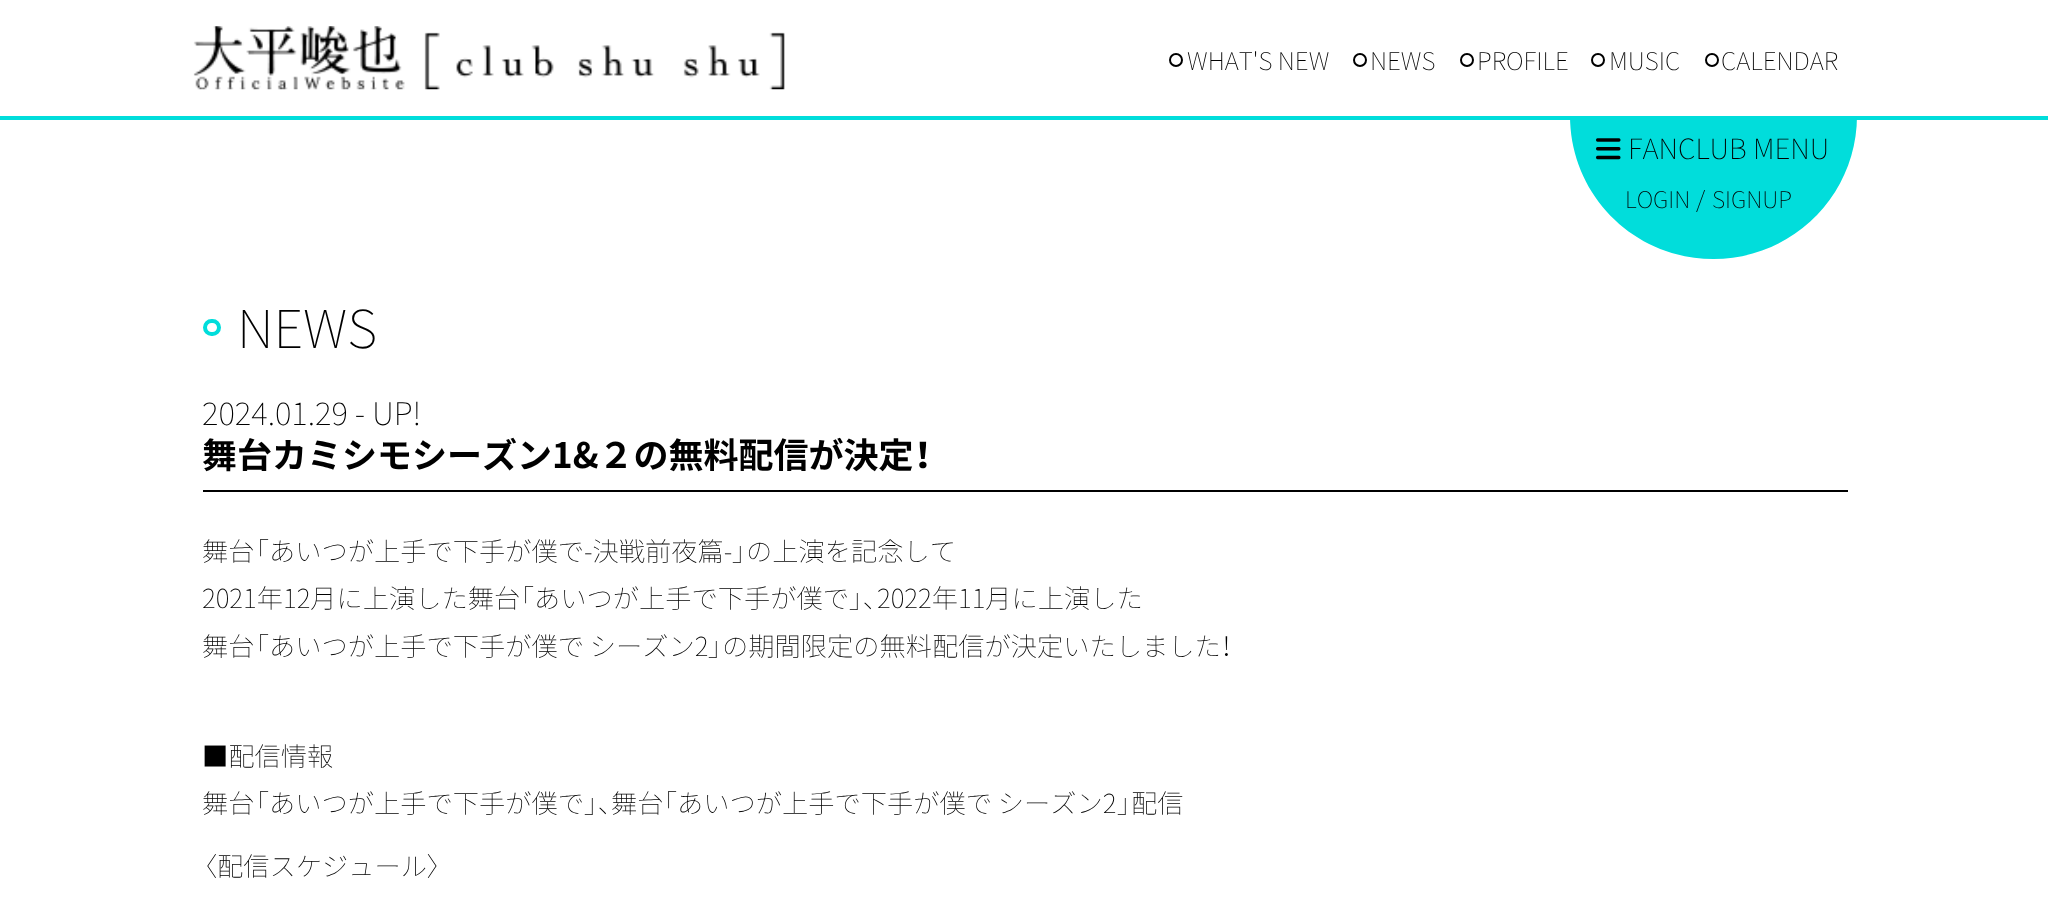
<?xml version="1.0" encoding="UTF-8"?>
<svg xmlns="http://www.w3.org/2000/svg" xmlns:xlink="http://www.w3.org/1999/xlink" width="2048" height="899">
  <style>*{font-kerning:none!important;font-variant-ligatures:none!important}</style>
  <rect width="100%" height="100%" fill="#ffffff" />
  <rect y="116" width="2048" height="4" fill="#01dddb" />
  <image x="193" y="26" width="592" height="64" xlink:href="image1.png" />
  <circle cx="1176" cy="60" r="6" fill="none" stroke="#000000" stroke-width="2" />
  <circle cx="1360" cy="60" r="6" fill="none" stroke="#000000" stroke-width="2" />
  <circle cx="1467" cy="60" r="6" fill="none" stroke="#000000" stroke-width="2" />
  <circle cx="1598" cy="60" r="6" fill="none" stroke="#000000" stroke-width="2" />
  <circle cx="1712" cy="60" r="6" fill="none" stroke="#000000" stroke-width="2" />
  <path d="M 1570 116 h 287 v -0.5 c 0 79.5 -64 143.5 -143.5 143.5 c -79.5 0 -143.5 -64 -143.5 -143.5 z" fill="#01dddb" />
  <image x="1596" y="138" width="25" height="22" xlink:href="image2.png" />
  <rect x="205" y="321" width="14" height="13" rx="6.5" fill="none" stroke="#01dddb" stroke-width="4" />
  <rect x="203" y="490" width="1645" height="2" fill="#000000" />
  <text x="1187" y="70" style="font-family: Noto Sans JP; font-size: 24.5px; font-weight: 100; fill: #000000">WHAT'S NEW</text>
  <text x="1370" y="70" style="font-family: Noto Sans JP; font-size: 24.5px; font-weight: 100; fill: #000000">NEWS</text>
  <text x="1477" y="70" style="font-family: Noto Sans JP; font-size: 24.5px; font-weight: 100; fill: #000000">PROFILE</text>
  <text x="1609" y="70" style="font-family: Noto Sans JP; font-size: 24.5px; font-weight: 100; fill: #000000">MUSIC</text>
  <text x="1721" y="70" style="font-family: Noto Sans JP; font-size: 24.5px; font-weight: 100; fill: #000000">CALENDAR</text>
  <text x="1628" y="159" style="font-family: Noto Sans JP; font-size: 28px; font-weight: 100; fill: #000000">FANCLUB MENU</text>
  <text x="1625" y="208" style="font-family: Noto Sans JP; font-size: 23px; font-weight: 100; fill: #000000">LOGIN</text>
  <text x="1696" y="208" style="font-family: Noto Sans JP; font-size: 23px; font-weight: 100; fill: #000000">/</text>
  <text x="1712" y="208" style="font-family: Noto Sans JP; font-size: 23px; font-weight: 100; fill: #000000">SIGNUP</text>
  <text x="237" y="348" style="font-family: Noto Sans JP; font-size: 52.5px; font-weight: 100; fill: #000000">NEWS</text>
  <text x="202" y="425" style="font-family: Noto Sans JP; font-size: 31.5px; font-weight: 100; fill: #000000">2024.01.29 - UP!</text>
  <text x="202" y="468" style="font-family: Noto Sans JP; font-size: 35px; font-weight: bold; fill: #000000">舞台カミシモシーズン1&amp;２の無料配信が決定</text>
  <text x="914" y="468" style="font-family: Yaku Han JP; font-size: 35px; font-weight: bold; fill: #000000">！</text>
  <text x="202" y="561" style="font-family: Noto Sans JP; font-size: 26.25px; font-weight: 100; fill: #000000">舞台</text>
  <text x="255" y="561" style="font-family: Yaku Han JP; font-size: 26.25px; font-weight: 100; fill: #000000">「</text>
  <text x="269" y="561" style="font-family: Noto Sans JP; font-size: 26.25px; font-weight: 100; fill: #000000">あいつが上手で下手が僕で-決戦前夜篇-</text>
  <text x="732" y="561" style="font-family: Yaku Han JP; font-size: 26.25px; font-weight: 100; fill: #000000">」</text>
  <text x="746" y="561" style="font-family: Noto Sans JP; font-size: 26.25px; font-weight: 100; fill: #000000">の上演を記念して</text>
  <text x="202" y="608" style="font-family: Noto Sans JP; font-size: 26.25px; font-weight: 100; fill: #000000">2021年12月に上演した舞台</text>
  <text x="520" y="608" style="font-family: Yaku Han JP; font-size: 26.25px; font-weight: 100; fill: #000000">「</text>
  <text x="534" y="608" style="font-family: Noto Sans JP; font-size: 26.25px; font-weight: 100; fill: #000000">あいつが上手で下手が僕で</text>
  <text x="849" y="608" style="font-family: Yaku Han JP; font-size: 26.25px; font-weight: 100; fill: #000000">」、</text>
  <text x="877" y="608" style="font-family: Noto Sans JP; font-size: 26.25px; font-weight: 100; fill: #000000">2022年11月に上演した</text>
  <text x="202" y="656" style="font-family: Noto Sans JP; font-size: 26.25px; font-weight: 100; fill: #000000">舞台</text>
  <text x="255" y="656" style="font-family: Yaku Han JP; font-size: 26.25px; font-weight: 100; fill: #000000">「</text>
  <text x="269" y="656" style="font-family: Noto Sans JP; font-size: 26.25px; font-weight: 100; fill: #000000">あいつが上手で下手が僕で シーズン2</text>
  <text x="708" y="656" style="font-family: Yaku Han JP; font-size: 26.25px; font-weight: 100; fill: #000000">」</text>
  <text x="722" y="656" style="font-family: Noto Sans JP; font-size: 26.25px; font-weight: 100; fill: #000000">の期間限定の無料配信が決定いたしました</text>
  <text x="1221" y="656" style="font-family: Yaku Han JP; font-size: 26.25px; font-weight: 100; fill: #000000">！</text>
  <text x="202" y="766" style="font-family: Noto Sans JP; font-size: 26.25px; font-weight: 100; fill: #000000">■配信情報</text>
  <text x="202" y="813" style="font-family: Noto Sans JP; font-size: 26.25px; font-weight: 100; fill: #000000">舞台</text>
  <text x="255" y="813" style="font-family: Yaku Han JP; font-size: 26.25px; font-weight: 100; fill: #000000">「</text>
  <text x="269" y="813" style="font-family: Noto Sans JP; font-size: 26.25px; font-weight: 100; fill: #000000">あいつが上手で下手が僕で</text>
  <text x="584" y="813" style="font-family: Yaku Han JP; font-size: 26.25px; font-weight: 100; fill: #000000">」、</text>
  <text x="611" y="813" style="font-family: Noto Sans JP; font-size: 26.25px; font-weight: 100; fill: #000000">舞台</text>
  <text x="663" y="813" style="font-family: Yaku Han JP; font-size: 26.25px; font-weight: 100; fill: #000000">「</text>
  <text x="677" y="813" style="font-family: Noto Sans JP; font-size: 26.25px; font-weight: 100; fill: #000000">あいつが上手で下手が僕で シーズン2</text>
  <text x="1117" y="813" style="font-family: Yaku Han JP; font-size: 26.25px; font-weight: 100; fill: #000000">」</text>
  <text x="1131" y="813" style="font-family: Noto Sans JP; font-size: 26.25px; font-weight: 100; fill: #000000">配信</text>
  <text x="202" y="876" style="font-family: Yaku Han JP; font-size: 26.25px; font-weight: 100; fill: #000000">〈</text>
  <text x="217" y="876" style="font-family: Noto Sans JP; font-size: 26.25px; font-weight: 100; fill: #000000">配信スケジュール</text>
  <text x="427" y="876" style="font-family: Yaku Han JP; font-size: 26.25px; font-weight: 100; fill: #000000">〉</text>
</svg>
